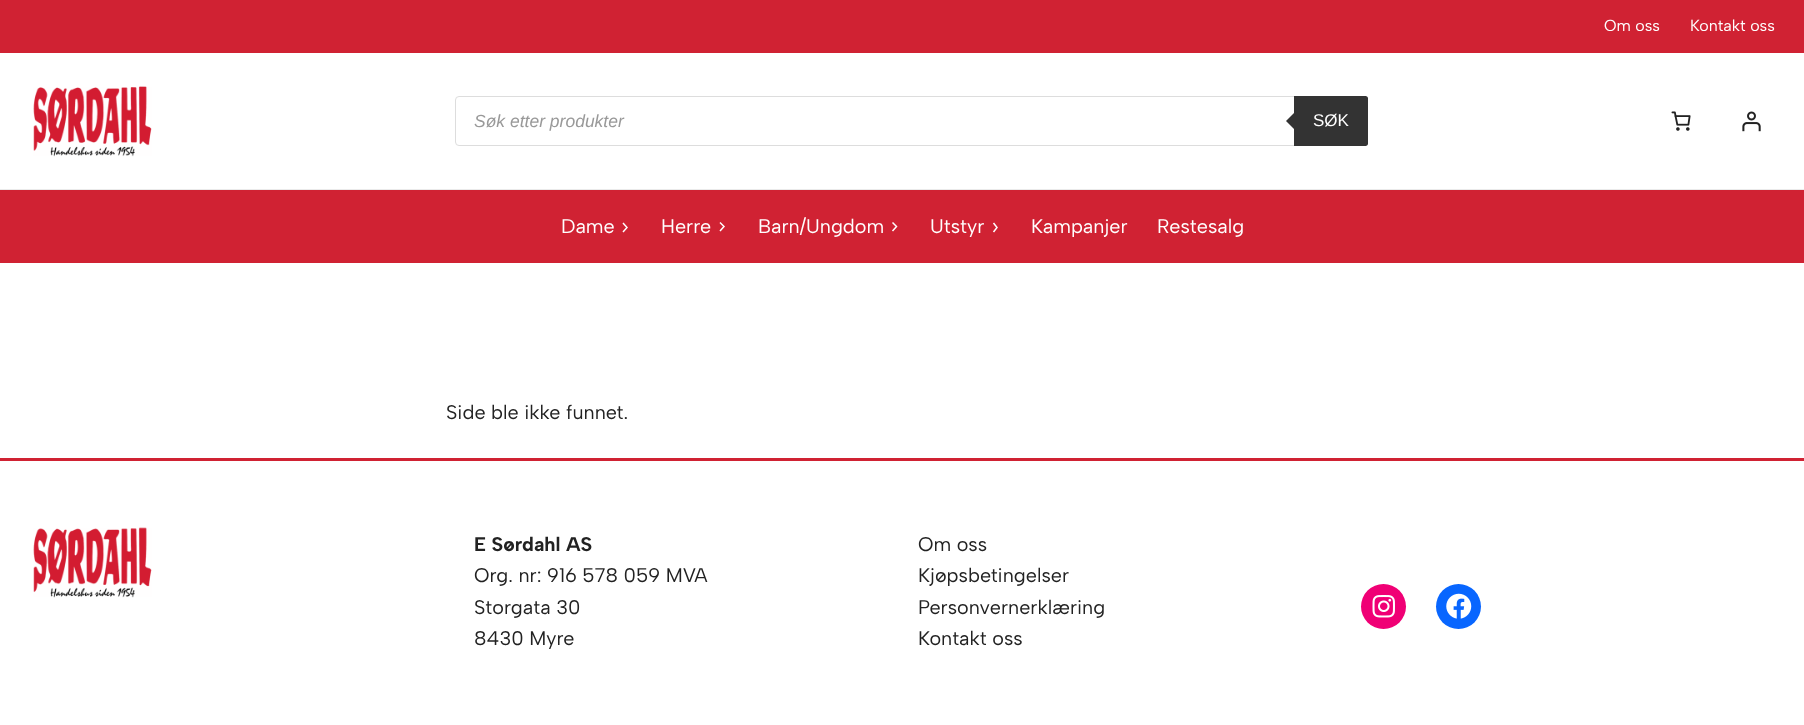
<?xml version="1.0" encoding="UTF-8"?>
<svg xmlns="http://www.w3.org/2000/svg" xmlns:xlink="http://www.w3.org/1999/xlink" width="1804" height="725">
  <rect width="100%" height="100%" fill="#ffffff" />
  <rect width="1804" height="53" fill="#d02233" />
  <rect y="189" width="1804" height="1" fill="#eaeaea" />
  <image x="33" y="86" width="119" height="71" xlink:href="image1.png" />
  <rect x="455.5" y="96.5" width="912" height="49" rx="3.5" fill="none" stroke="#dddddd" />
  <path d="M 1294 96 h 71.5 c 1.5 0 2.5 1 2.5 2.5 v 45 c 0 1.5 -1 2.5 -2.5 2.5 h -71.5 z" fill="#333333" />
  <path d="M 1296 111 v 20 l -10 -10 z" fill="#333333" />
  <image x="1671" y="111" width="20" height="20" xlink:href="image2.png" />
  <image x="1742" y="111" width="19" height="21" xlink:href="image3.png" />
  <rect y="190" width="1804" height="73" fill="#d02233" />
  <path d="M 623 232 l 4 -4.5 l -4 -4.5" fill="none" stroke="#ffffff" stroke-width="1.5" />
  <path d="M 720 231 l 4 -4.5 l -4 -4" fill="none" stroke="#ffffff" stroke-width="1.5" />
  <path d="M 892.5 231 l 4 -4.5 l -4 -4" fill="none" stroke="#ffffff" stroke-width="1.5" />
  <path d="M 993.5 232 l 3.5 -4.5 l -3.5 -4.5" fill="none" stroke="#ffffff" stroke-width="1.5" />
  <rect y="458" width="1804" height="3" fill="#d02233" />
  <image x="33" y="527" width="119" height="71" xlink:href="image4.png" />
  <circle cx="1383.5" cy="606.5" r="22.5" fill="#f00075" />
  <image x="1372" y="595" width="23" height="23" xlink:href="image5.png" />
  <circle cx="1458.5" cy="606.5" r="22.5" fill="#0866ff" />
  <image x="1446" y="593" width="26" height="26" xlink:href="image6.png" />
  <text x="1604" y="31" style="font-family: Albert Sans; font-size: 16px; fill: #ffffff">Om oss</text>
  <text x="1690" y="31" style="font-family: Albert Sans; font-size: 16px; fill: #ffffff">Kontakt oss</text>
  <text x="474" y="127" style="font-family: Liberation Sans; font-size: 17.5px; font-style: italic; fill: #999999">Søk etter produkter</text>
  <text x="1313" y="126" style="font-family: Liberation Sans; font-size: 17px; fill: #ffffff">SØK</text>
  <text x="561" y="233" style="font-family: Albert Sans; font-size: 19.75px; fill: #ffffff">Dame</text>
  <text x="661" y="233" style="font-family: Albert Sans; font-size: 19.75px; fill: #ffffff">Herre</text>
  <text x="758" y="233" style="font-family: Albert Sans; font-size: 19.75px; fill: #ffffff">Barn/Ungdom</text>
  <text x="930" y="233" style="font-family: Albert Sans; font-size: 19.75px; fill: #ffffff">Utstyr</text>
  <text x="1031" y="233" style="font-family: Albert Sans; font-size: 19.75px; fill: #ffffff">Kampanjer</text>
  <text x="1157" y="233" style="font-family: Albert Sans; font-size: 19.75px; fill: #ffffff">Restesalg</text>
  <text x="446" y="419" style="font-family: Albert Sans; font-size: 19.75px; fill: #222222">Side ble ikke funnet.</text>
  <text x="474" y="551" style="font-family: Albert Sans; font-size: 19.75px; font-weight: bold; fill: #222222">E Sørdahl AS</text>
  <text x="474" y="582" style="font-family: Albert Sans; font-size: 19.75px; fill: #222222">Org. nr: 916 578 059 MVA</text>
  <text x="474" y="614" style="font-family: Albert Sans; font-size: 19.75px; fill: #222222">Storgata 30</text>
  <text x="474" y="645" style="font-family: Albert Sans; font-size: 19.75px; fill: #222222">8430 Myre</text>
  <text x="918" y="551" style="font-family: Albert Sans; font-size: 19.75px; fill: #222222">Om oss</text>
  <text x="918" y="582" style="font-family: Albert Sans; font-size: 19.75px; fill: #222222">Kjøpsbetingelser</text>
  <text x="918" y="614" style="font-family: Albert Sans; font-size: 19.75px; fill: #222222">Personvernerklæring</text>
  <text x="918" y="645" style="font-family: Albert Sans; font-size: 19.75px; fill: #222222">Kontakt oss</text>
</svg>
